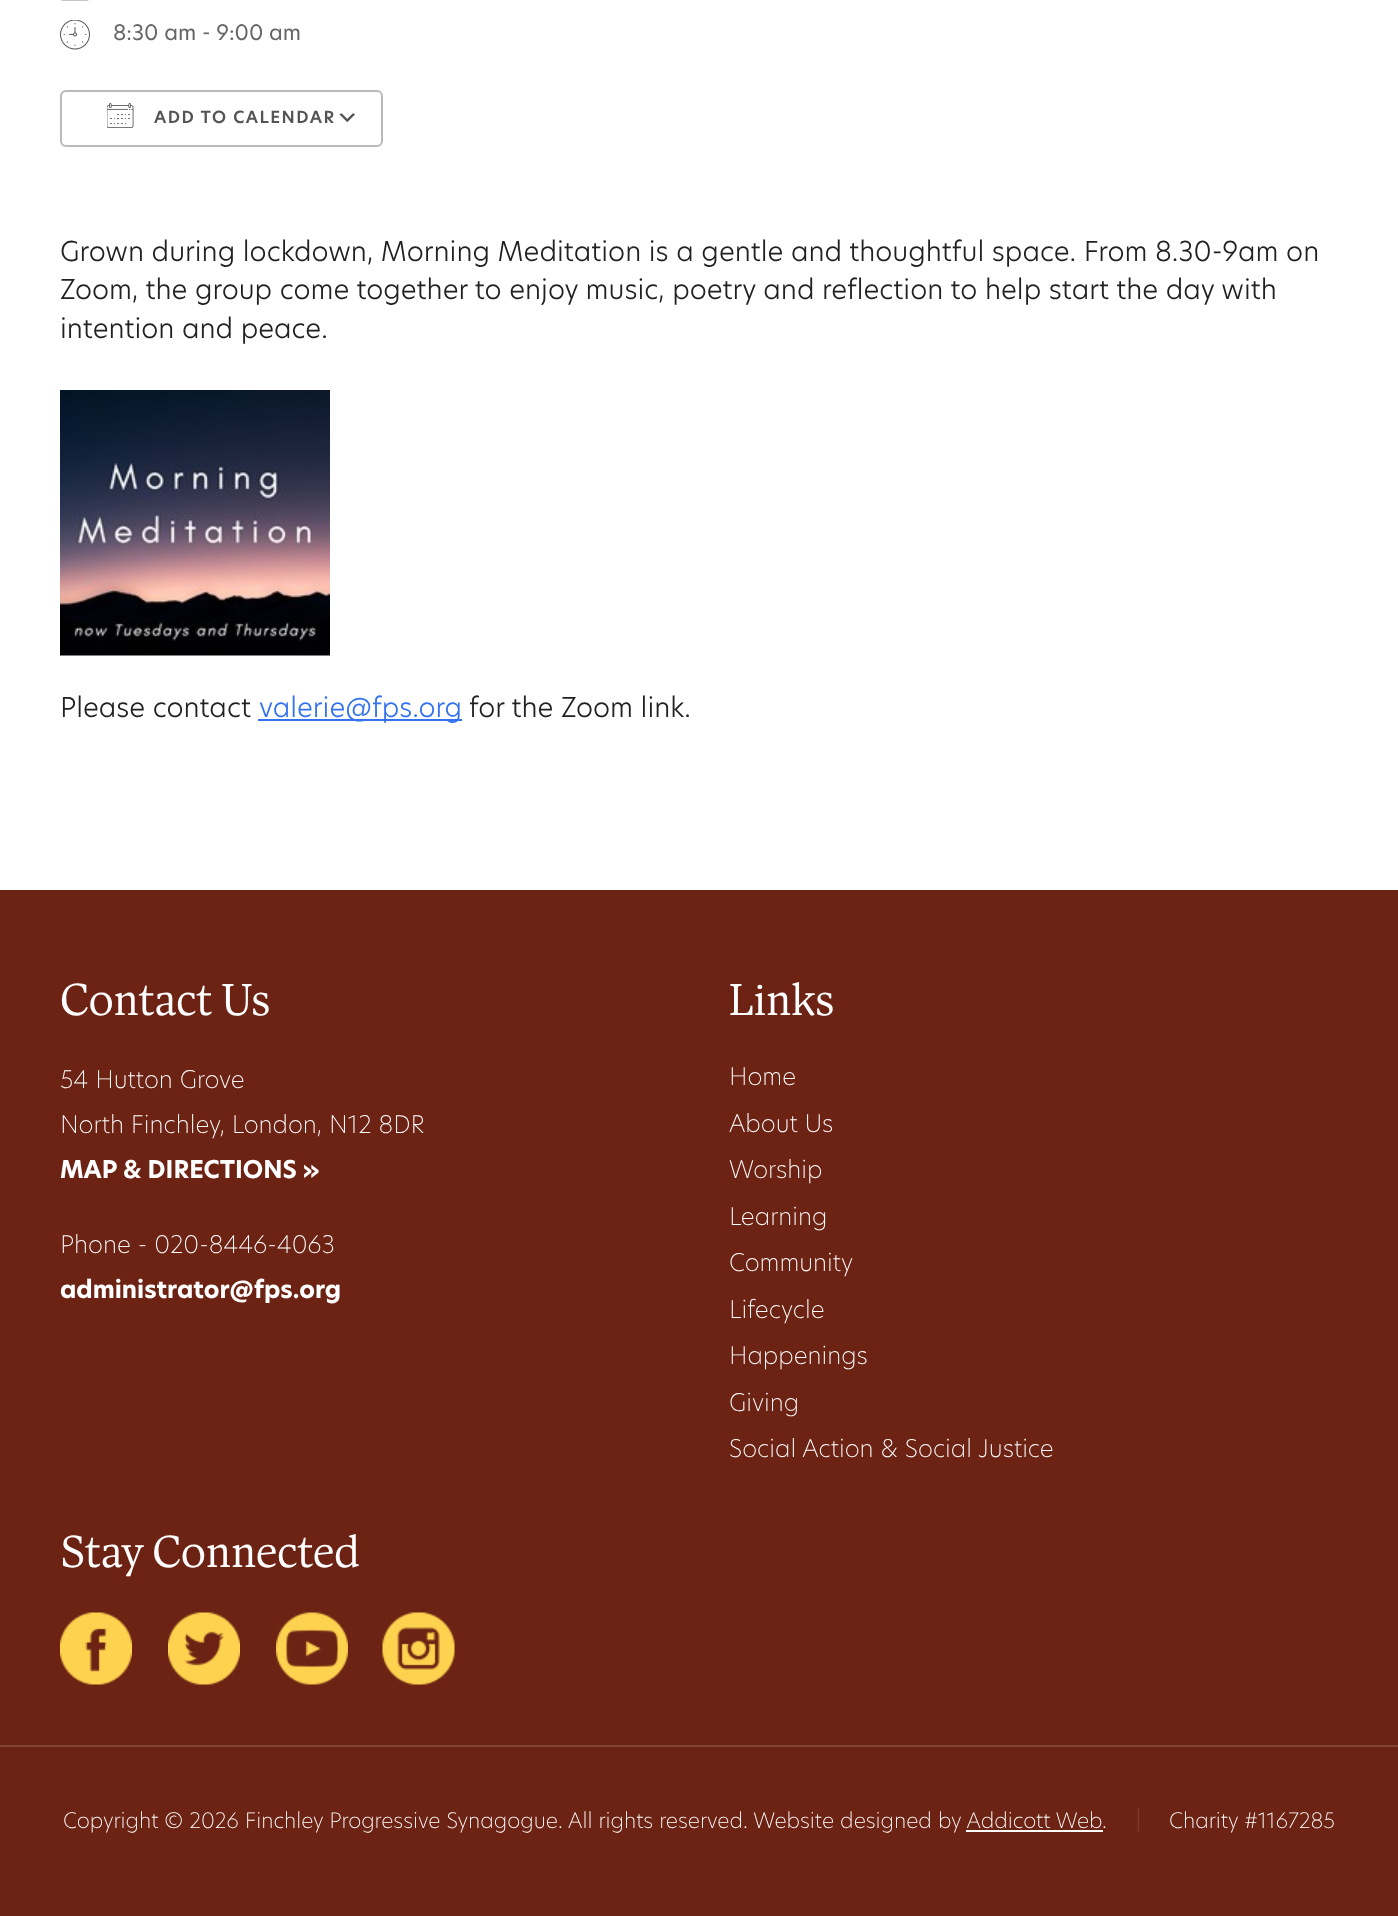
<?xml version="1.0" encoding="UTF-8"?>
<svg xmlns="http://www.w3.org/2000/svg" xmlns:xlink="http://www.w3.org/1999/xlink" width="1398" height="1916">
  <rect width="100%" height="100%" fill="#6c2314" />
  <rect width="1398" height="890" fill="#ffffff" />
  <image x="61" y="0" width="28" height="1" xlink:href="image1.png" />
  <image x="60" y="20" width="30" height="30" xlink:href="image2.png" />
  <image x="339" y="113" width="16" height="10" xlink:href="image3.png" />
  <rect x="61" y="91" width="321" height="55" rx="5" fill="none" stroke="#bababa" stroke-width="2" />
  <image x="107" y="103" width="27" height="25" xlink:href="image4.png" />
  <image x="60" y="390" width="270" height="266" xlink:href="image5.png" />
  <rect x="258" y="719" width="204" height="2" fill="#3372f0" />
  <image x="60" y="1612" width="72" height="73" xlink:href="image6.png" />
  <image x="168" y="1612" width="72" height="73" xlink:href="image7.png" />
  <image x="276" y="1612" width="72" height="73" xlink:href="image8.png" />
  <image x="382" y="1612" width="73" height="73" xlink:href="image9.png" />
  <rect y="1745" width="1398" height="2" fill="#824437" />
  <rect x="966" y="1830" width="137" height="2" fill="#ffffff" />
  <text x="113" y="40" style="font-family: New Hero; font-size: 21px; fill: #666666">8:30 am - 9:00 am</text>
  <text x="154" y="123" style="font-family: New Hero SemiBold; font-size: 16.5px; font-weight: 600; letter-spacing: 1.5px; fill: #545454">ADD TO CALENDAR</text>
  <text x="60" y="261" style="font-family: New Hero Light; font-size: 27px; font-weight: 300; fill: #212121">Grown during lockdown, Morning Meditation is a gentle and thoughtful space. From 8.30-9am on</text>
  <text x="60" y="299" style="font-family: New Hero Light; font-size: 27px; font-weight: 300; fill: #212121">Zoom, the group come together to enjoy music, poetry and reflection to help start the day with</text>
  <text x="60" y="338" style="font-family: New Hero Light; font-size: 27px; font-weight: 300; fill: #212121">intention and peace.</text>
  <text x="60" y="717" style="font-family: New Hero Light; font-size: 27px; font-weight: 300; fill: #212121">Please contact</text>
  <text x="259" y="717" style="font-family: New Hero Light; font-size: 27px; font-weight: 300; fill: #3372f0">valerie@fps.org</text>
  <text x="469" y="717" style="font-family: New Hero Light; font-size: 27px; font-weight: 300; fill: #212121">for the Zoom link.</text>
  <text x="60" y="1015" style="font-family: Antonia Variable; font-size: 45px; fill: #ffffff">Contact Us</text>
  <text x="60" y="1088" style="font-family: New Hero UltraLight; font-size: 24px; font-weight: 200; fill: #ffffff">54 Hutton Grove</text>
  <text x="60" y="1133" style="font-family: New Hero UltraLight; font-size: 24px; font-weight: 200; fill: #ffffff">North Finchley, London, N12 8DR</text>
  <text x="60" y="1178" style="font-family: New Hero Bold; font-size: 24px; font-weight: bold; fill: #ffffff">MAP &amp; DIRECTIONS »</text>
  <text x="60" y="1253" style="font-family: New Hero UltraLight; font-size: 24px; font-weight: 200; fill: #ffffff">Phone - 020-8446-4063</text>
  <text x="60" y="1298" style="font-family: New Hero Bold; font-size: 24px; font-weight: bold; fill: #ffffff">administrator@fps.org</text>
  <text x="729" y="1015" style="font-family: Antonia Variable; font-size: 45px; fill: #ffffff">Links</text>
  <text x="729" y="1085" style="font-family: New Hero UltraLight; font-size: 24px; font-weight: 200; fill: #ffffff">Home</text>
  <text x="729" y="1132" style="font-family: New Hero UltraLight; font-size: 24px; font-weight: 200; fill: #ffffff">About Us</text>
  <text x="729" y="1178" style="font-family: New Hero UltraLight; font-size: 24px; font-weight: 200; fill: #ffffff">Worship</text>
  <text x="729" y="1225" style="font-family: New Hero UltraLight; font-size: 24px; font-weight: 200; fill: #ffffff">Learning</text>
  <text x="729" y="1271" style="font-family: New Hero UltraLight; font-size: 24px; font-weight: 200; fill: #ffffff">Community</text>
  <text x="729" y="1318" style="font-family: New Hero UltraLight; font-size: 24px; font-weight: 200; fill: #ffffff">Lifecycle</text>
  <text x="729" y="1364" style="font-family: New Hero UltraLight; font-size: 24px; font-weight: 200; fill: #ffffff">Happenings</text>
  <text x="729" y="1411" style="font-family: New Hero UltraLight; font-size: 24px; font-weight: 200; fill: #ffffff">Giving</text>
  <text x="729" y="1457" style="font-family: New Hero UltraLight; font-size: 24px; font-weight: 200; fill: #ffffff">Social Action &amp; Social Justice</text>
  <text x="60" y="1567" style="font-family: Antonia Variable; font-size: 45px; fill: #ffffff">Stay Connected</text>
  <text x="63" y="1828" style="font-family: New Hero UltraLight; font-size: 21px; font-weight: 200; fill: #ffffff">Copyright © 2026 Finchley Progressive Synagogue. All rights reserved. Website designed by Addicott Web</text>
  <text x="1102" y="1828" style="font-family: New Hero UltraLight; font-size: 21px; font-weight: 200; fill: #ffffff">.</text>
  <text x="1136" y="1828" style="font-family: New Hero UltraLight; font-size: 21px; font-weight: 200; fill: #824437">|</text>
  <text x="1169" y="1828" style="font-family: New Hero UltraLight; font-size: 21px; font-weight: 200; fill: #ffffff">Charity #1167285</text>
</svg>
